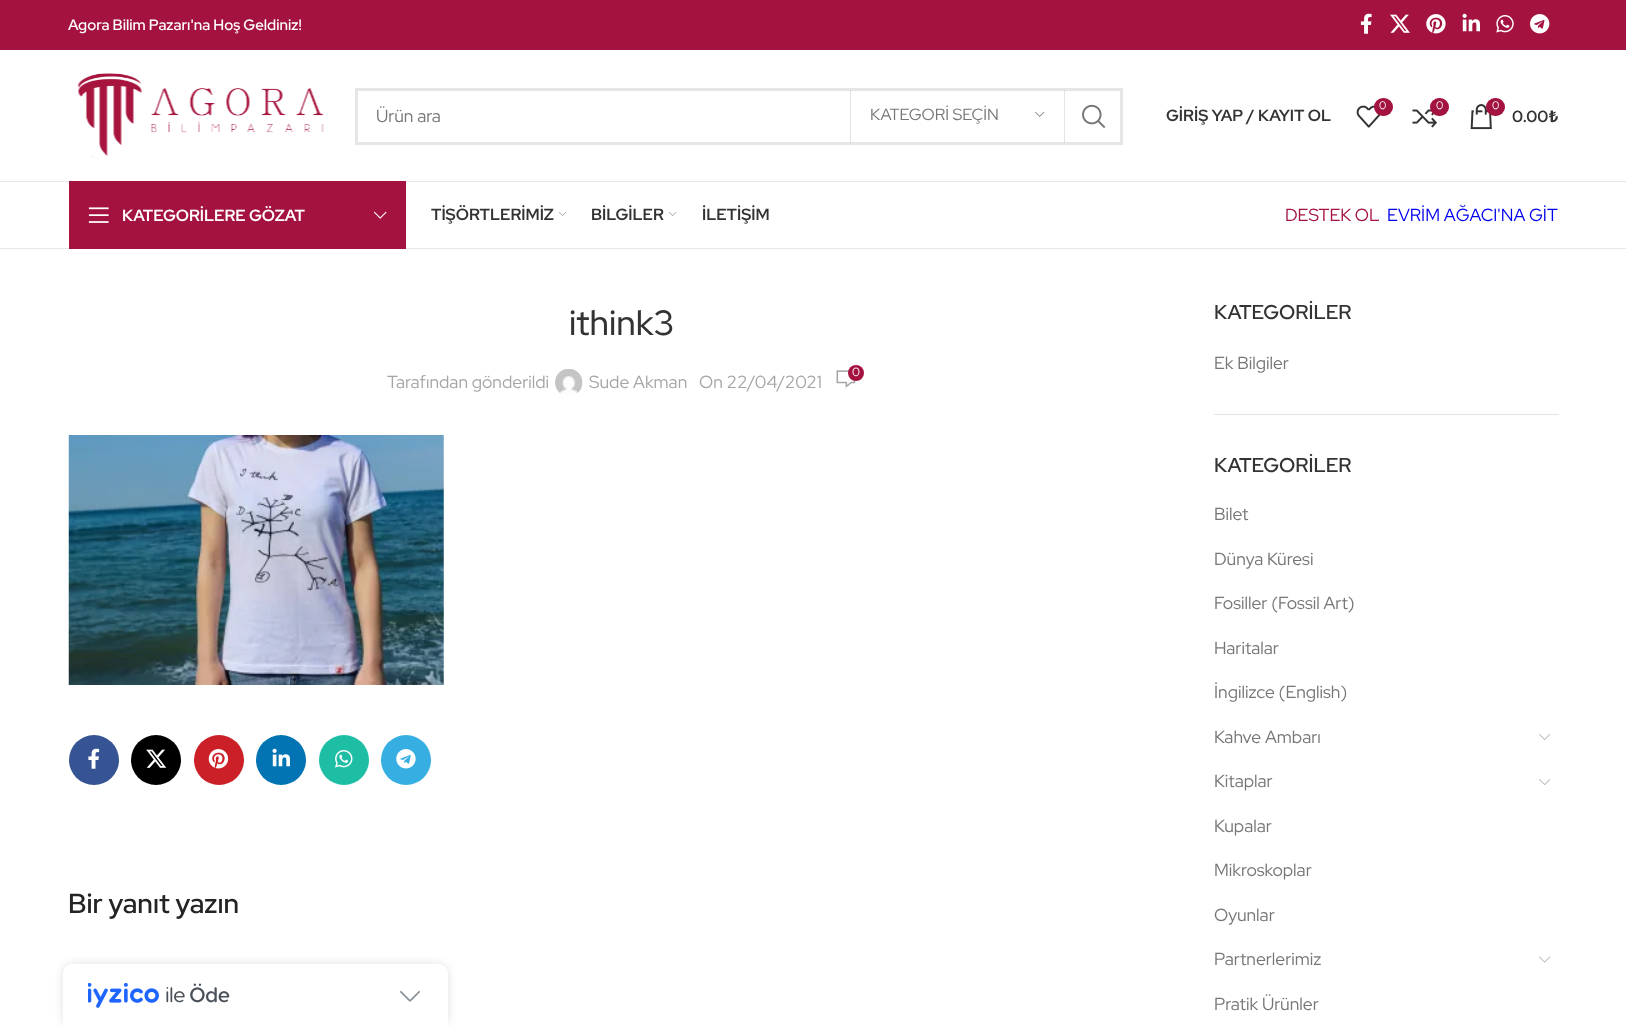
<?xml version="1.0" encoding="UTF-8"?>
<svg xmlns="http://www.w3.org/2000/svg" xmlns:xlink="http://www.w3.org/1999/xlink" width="1626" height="1026">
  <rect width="100%" height="100%" fill="#ffffff" />
  <rect width="1626" height="50" fill="#a4123f" />
  <image x="1360" y="13" width="12" height="21" xlink:href="image1.png" />
  <image x="1390" y="14" width="20" height="19" xlink:href="image2.png" />
  <image x="1426" y="14" width="20" height="20" xlink:href="image3.png" />
  <image x="1462" y="13" width="18" height="19" xlink:href="image4.png" />
  <image x="1496" y="15" width="18" height="18" xlink:href="image5.png" />
  <image x="1530" y="14" width="20" height="20" xlink:href="image6.png" />
  <rect y="181" width="1626" height="1" fill="#e8e8e8" />
  <image x="77" y="73" width="247" height="85" xlink:href="image7.png" />
  <rect x="356.5" y="89.5" width="765" height="54" fill="none" stroke="#e6e6e6" stroke-width="3" />
  <rect x="1064" y="90" width="1" height="53" fill="#000000" fill-opacity="0.1" />
  <rect x="850" y="90" width="1" height="53" fill="#000000" fill-opacity="0.1" />
  <image x="1035" y="111" width="10" height="6" xlink:href="image8.png" />
  <image x="1082" y="104" width="24" height="24" xlink:href="image9.png" />
  <image x="1356" y="105" width="25" height="23" xlink:href="image10.png" />
  <rect x="1374" y="98" width="19" height="18" rx="9" fill="#a4123f" />
  <image x="1412" y="109" width="25" height="19" xlink:href="image11.png" />
  <rect x="1430" y="98" width="19" height="18" rx="9" fill="#a4123f" />
  <image x="1470" y="104" width="22" height="26" xlink:href="image12.png" />
  <rect x="1486" y="98" width="19" height="18" rx="9" fill="#a4123f" />
  <rect y="248" width="1626" height="1" fill="#e8e8e8" />
  <rect x="69" y="181" width="337" height="68" fill="#a4123f" />
  <image x="88" y="207" width="21" height="16" xlink:href="image13.png" />
  <image x="373" y="211" width="14" height="8" xlink:href="image14.png" />
  <image x="558" y="212" width="9" height="4" xlink:href="image15.png" />
  <image x="668" y="212" width="9" height="4" xlink:href="image15.png" />
  <image x="836" y="370" width="20" height="18" xlink:href="image16.png" />
  <circle cx="856" cy="373" r="8" fill="#a4123f" />
  <image x="555" y="369" width="28" height="27" xlink:href="image17.png" />
  <image x="68" y="435" width="376" height="250" xlink:href="image18.png" />
  <circle cx="94" cy="760" r="25" fill="#365493" />
  <image x="88" y="748" width="12" height="21" xlink:href="image19.png" />
  <circle cx="156" cy="760" r="25" fill="#000000" />
  <image x="146" y="749" width="21" height="19" xlink:href="image20.png" />
  <circle cx="219" cy="760" r="25" fill="#cb2027" />
  <image x="208" y="749" width="21" height="20" xlink:href="image21.png" />
  <circle cx="281" cy="760" r="25" fill="#0274b3" />
  <image x="272" y="748" width="18" height="19" xlink:href="image22.png" />
  <circle cx="344" cy="760" r="25" fill="#1ebea5" />
  <image x="335" y="750" width="18" height="18" xlink:href="image23.png" />
  <circle cx="406" cy="760" r="25" fill="#37aee2" />
  <image x="396" y="749" width="20" height="20" xlink:href="image24.png" />
  <rect x="1214" y="414" width="345" height="1" fill="#e4e4e4" />
  <image x="1539" y="734" width="12" height="7" xlink:href="image25.png" />
  <image x="1539" y="779" width="12" height="7" xlink:href="image25.png" />
  <image x="1539" y="956" width="12" height="7" xlink:href="image26.png" />
  <rect x="63" y="964" width="385" height="62" rx="10" fill="#000000" fill-opacity="0.12" filter="blur(5px)" />
  <path d="M 73 964 h 365 c 5.5 0 10 4.5 10 10 v 52 h -385 v -52 c 0 -5.5 4.5 -10 10 -10 z" fill="#ffffff" />
  <image x="88" y="983" width="142" height="25" xlink:href="image27.png" />
  <image x="400" y="991" width="20" height="11" xlink:href="image28.png" />
  <text x="68" y="30" style="font-family: Red Hat Display; font-size: 15px; font-weight: 600; fill: #ffffff">Agora Bilim Pazarı'na Hoş Geldiniz!</text>
  <text x="376" y="122" style="font-family: Red Hat Display; font-size: 17.5px; fill: #767676">Ürün ara</text>
  <text x="870" y="120" style="font-family: Red Hat Display; font-size: 16.25px; fill: #767676">KATEGORİ SEÇİN</text>
  <text x="1166" y="121" style="font-family: Red Hat Display; font-size: 16.25px; font-weight: bold; fill: #333333">GİRİŞ YAP / KAYIT OL</text>
  <text x="1379" y="109" style="font-family: Red Hat Display; font-size: 11px; fill: #ffffff">0</text>
  <text x="1436" y="109" style="font-family: Red Hat Display; font-size: 11px; fill: #ffffff">0</text>
  <text x="1492" y="109" style="font-family: Red Hat Display; font-size: 11px; fill: #ffffff">0</text>
  <text x="1512" y="122" style="font-family: Red Hat Display; font-size: 16.25px; font-weight: bold; fill: #333333">0.00</text>
  <text x="1549" y="122" style="font-family: Noto Sans; font-size: 16.25px; font-weight: bold; fill: #333333">₺</text>
  <text x="122" y="221" style="font-family: Red Hat Display; font-size: 16.25px; font-weight: bold; fill: #ffffff">KATEGORİLERE GÖZAT</text>
  <text x="431" y="220" style="font-family: Red Hat Display; font-size: 16.25px; font-weight: bold; fill: #333333">TİŞÖRTLERİMİZ</text>
  <text x="591" y="220" style="font-family: Red Hat Display; font-size: 16.25px; font-weight: bold; fill: #333333">BİLGİLER</text>
  <text x="702" y="220" style="font-family: Red Hat Display; font-size: 16.25px; font-weight: bold; fill: #333333">İLETİŞİM</text>
  <text x="1285" y="221" style="font-family: Red Hat Display; font-size: 17.5px; fill: #a4123f">DESTEK OL</text>
  <text x="1387" y="221" style="font-family: Red Hat Display; font-size: 17.5px; fill: #0000ee">EVRİM AĞACI'NA GİT</text>
  <text x="569" y="335" style="font-family: Red Hat Display; font-size: 35px; font-weight: 500; fill: #333333">ithink3</text>
  <text x="852" y="376" style="font-family: Red Hat Display; font-size: 12px; fill: #ffffff">0</text>
  <text x="387" y="388" style="font-family: Red Hat Display; font-size: 17.5px; fill: #a5a5a5">Tarafından gönderildi</text>
  <text x="589" y="388" style="font-family: Red Hat Display; font-size: 17.5px; fill: #a5a5a5">Sude Akman</text>
  <text x="699" y="388" style="font-family: Red Hat Display; font-size: 17.5px; fill: #a5a5a5">On 22/04/2021</text>
  <text x="68" y="913" style="font-family: Red Hat Display; font-size: 27.5px; font-weight: 600; fill: #242424">Bir yanıt yazın</text>
  <text x="1214" y="319" style="font-family: Red Hat Display; font-size: 20px; font-weight: 600; fill: #333333">KATEGORİLER</text>
  <text x="1214" y="369" style="font-family: Red Hat Display; font-size: 17.5px; fill: #767676">Ek Bilgiler</text>
  <text x="1214" y="472" style="font-family: Red Hat Display; font-size: 20px; font-weight: 600; fill: #333333">KATEGORİLER</text>
  <text x="1214" y="520" style="font-family: Red Hat Display; font-size: 17.5px; fill: #767676">Bilet</text>
  <text x="1214" y="565" style="font-family: Red Hat Display; font-size: 17.5px; fill: #767676">Dünya Küresi</text>
  <text x="1214" y="609" style="font-family: Red Hat Display; font-size: 17.5px; fill: #767676">Fosiller (Fossil Art)</text>
  <text x="1214" y="654" style="font-family: Red Hat Display; font-size: 17.5px; fill: #767676">Haritalar</text>
  <text x="1214" y="698" style="font-family: Red Hat Display; font-size: 17.5px; fill: #767676">İngilizce (English)</text>
  <text x="1214" y="743" style="font-family: Red Hat Display; font-size: 17.5px; fill: #767676">Kahve Ambarı</text>
  <text x="1214" y="787" style="font-family: Red Hat Display; font-size: 17.5px; fill: #767676">Kitaplar</text>
  <text x="1214" y="832" style="font-family: Red Hat Display; font-size: 17.5px; fill: #767676">Kupalar</text>
  <text x="1214" y="876" style="font-family: Red Hat Display; font-size: 17.5px; fill: #767676">Mikroskoplar</text>
  <text x="1214" y="921" style="font-family: Red Hat Display; font-size: 17.5px; fill: #767676">Oyunlar</text>
  <text x="1214" y="965" style="font-family: Red Hat Display; font-size: 17.5px; fill: #767676">Partnerlerimiz</text>
  <text x="1214" y="1010" style="font-family: Red Hat Display; font-size: 17.5px; fill: #767676">Pratik Ürünler</text>
</svg>
